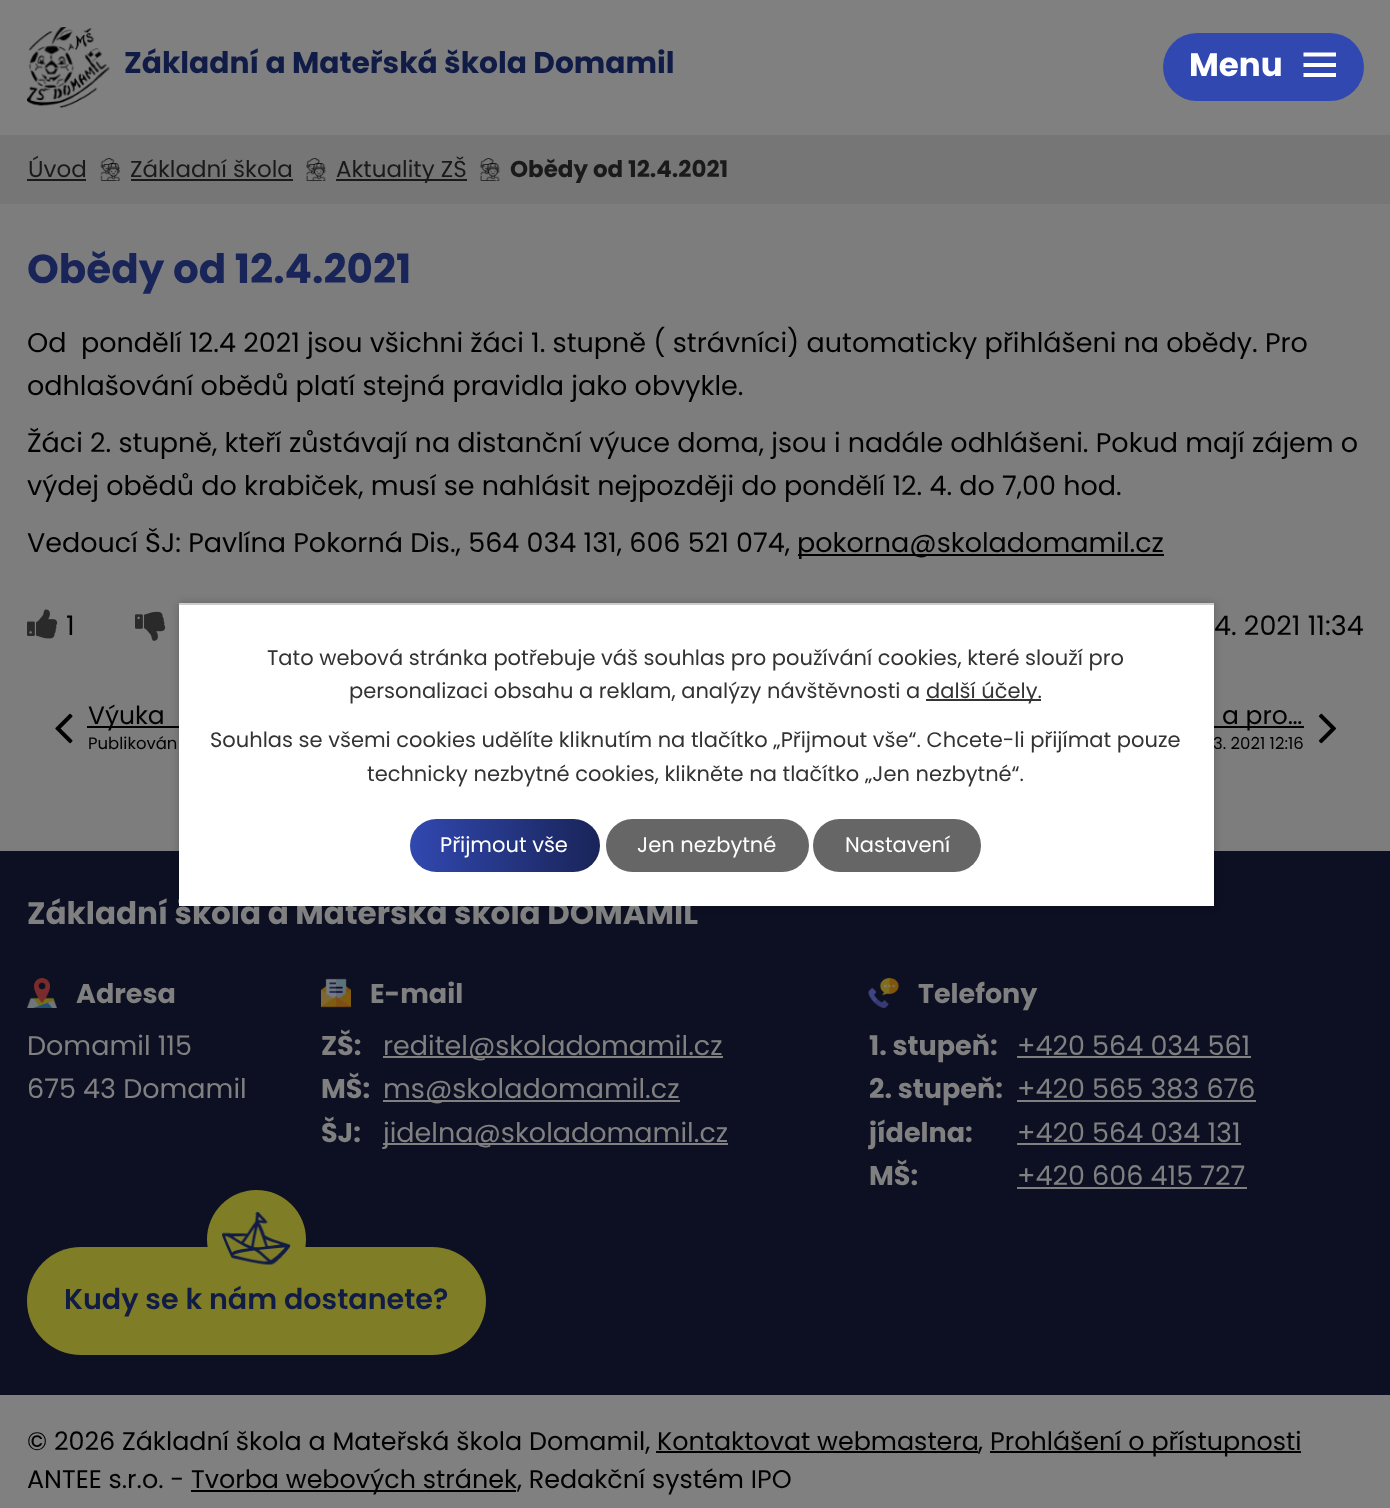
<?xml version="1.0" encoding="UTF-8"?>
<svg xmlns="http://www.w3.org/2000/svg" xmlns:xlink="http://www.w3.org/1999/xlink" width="1390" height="1508">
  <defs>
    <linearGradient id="g1" gradientUnits="userSpaceOnUse" x1="410" y1="846" x2="600" y2="846"><stop offset="0" stop-color="#3148b0" /><stop offset="1" stop-color="#192458" /></linearGradient>
  </defs>
  <rect width="100%" height="100%" fill="#7d7d7d" />
  <rect width="1390" height="135" fill="#808080" />
  <image x="27" y="27" width="83" height="81" xlink:href="image1.png" />
  <rect x="1163" y="33" width="201" height="68" rx="34" fill="#3148b0" />
  <path d="M 1303.5 77 v -4 h 32.5 v 4 z m 0 -24.5 h 32.5 v 4 h -32.5 z m 0 14.5 v -4 h 32.5 v 4 z" fill="#ffffff" />
  <rect y="135" width="1390" height="69" fill="#767676" />
  <rect x="27" y="179" width="59" height="2" fill="#1a1a1a" />
  <image x="100" y="158" width="21" height="23" xlink:href="image2.png" />
  <rect x="131" y="179" width="162" height="2" fill="#1a1a1a" />
  <image x="306" y="158" width="20" height="23" xlink:href="image3.png" />
  <rect x="336" y="179" width="131" height="2" fill="#1a1a1a" />
  <image x="480" y="158" width="20" height="23" xlink:href="image3.png" />
  <rect x="798" y="554" width="366" height="2" fill="#000000" />
  <image x="27" y="609" width="31" height="30" xlink:href="image4.png" />
  <image x="135" y="611" width="31" height="30" xlink:href="image5.png" />
  <image x="55" y="713" width="18" height="31" xlink:href="image6.png" />
  <rect x="87" y="726" width="92" height="2" fill="#000000" />
  <rect x="1214" y="726" width="90" height="2" fill="#000000" />
  <image x="1318" y="713" width="18" height="31" xlink:href="image7.png" />
  <rect y="851" width="1390" height="544" fill="#0d1022" />
  <rect x="179" y="603" width="1035" height="303" fill="#000000" fill-opacity="0.2" filter="blur(4px)" />
  <rect x="179" y="603" width="1035" height="2" fill="#cccccc" />
  <image x="27" y="978" width="30" height="30" xlink:href="image8.png" />
  <image x="321" y="978" width="30" height="30" xlink:href="image9.png" />
  <rect x="383" y="1056" width="340" height="2" fill="#808080" />
  <rect x="383" y="1100" width="297" height="2" fill="#808080" />
  <rect x="383" y="1143" width="345" height="2" fill="#808080" />
  <image x="868" y="978" width="31" height="30" xlink:href="image10.png" />
  <rect x="1017" y="1056" width="234" height="2" fill="#808080" />
  <rect x="1017" y="1100" width="239" height="2" fill="#808080" />
  <rect x="1017" y="1143" width="224" height="2" fill="#808080" />
  <rect x="1017" y="1187" width="230" height="2" fill="#808080" />
  <rect x="27" y="1247" width="459" height="108" rx="54" fill="#807d27" />
  <circle cx="256.5" cy="1239.5" r="49.5" fill="#807d27" />
  <image x="222" y="1212" width="69" height="53" xlink:href="image11.png" />
  <rect y="1395" width="1390" height="113" fill="#808080" />
  <rect x="990" y="1451" width="311" height="2" fill="#000000" />
  <rect x="656" y="1451" width="322" height="2" fill="#000000" />
  <rect x="191" y="1490" width="325" height="2" fill="#000000" />
  <text x="124" y="73" style="font-family: Poppins; font-size: 29.75px; font-weight: bold; fill: #111c46">Základní a Mateřská škola Domamil</text>
  <text x="1189" y="76" style="font-family: Poppins; font-size: 32.5px; font-weight: bold; fill: #ffffff">Menu</text>
  <text x="28" y="177" style="font-family: Poppins; font-size: 23px; fill: #1a1a1a">Úvod</text>
  <text x="130" y="177" style="font-family: Poppins; font-size: 23px; fill: #1a1a1a">Základní škola</text>
  <text x="336" y="177" style="font-family: Poppins; font-size: 23px; fill: #1a1a1a">Aktuality ZŠ</text>
  <text x="510" y="177" style="font-family: Poppins; font-size: 23px; font-weight: bold; fill: #1a1a1a">Obědy od 12.4.2021</text>
  <text x="27" y="283" style="font-family: Poppins; font-size: 40.5px; font-weight: bold; fill: #192458">Obědy od 12.4.2021</text>
  <text x="27" y="352" style="font-family: Poppins; font-size: 27px; fill: #000000" xml:space="preserve">Od  pondělí 12.4 2021 jsou všichni žáci 1. stupně ( strávníci) automaticky přihlášeni na obědy. Pro</text>
  <text x="27" y="395" style="font-family: Poppins; font-size: 27px; fill: #000000">odhlašování obědů platí stejná pravidla jako obvykle.</text>
  <text x="27" y="452" style="font-family: Poppins; font-size: 27px; fill: #000000">Žáci 2. stupně, kteří zůstávají na distanční výuce doma, jsou i nadále odhlášeni. Pokud mají zájem o</text>
  <text x="27" y="495" style="font-family: Poppins; font-size: 27px; fill: #000000">výdej obědů do krabiček, musí se nahlásit nejpozději do pondělí 12. 4. do 7,00 hod.</text>
  <text x="27" y="552" style="font-family: Poppins; font-size: 27px; fill: #000000">Vedoucí ŠJ: Pavlína Pokorná Dis., 564 034 131, 606 521 074,</text>
  <text x="797" y="552" style="font-family: Poppins; font-size: 27px; fill: #000000">pokorna@skoladomamil.cz</text>
  <text x="66" y="635" style="font-family: Poppins; font-size: 27px; fill: #000000">1</text>
  <text x="1214" y="635" style="font-family: Poppins; font-size: 27px; fill: #000000">4. 2021 11:34</text>
  <text x="88" y="724" style="font-family: Poppins; font-size: 25px; fill: #000000">Výuka</text>
  <text x="88" y="749" style="font-family: Poppins; font-size: 16.5px; fill: #000000">Publikován</text>
  <text x="1222" y="724" style="font-family: Poppins; font-size: 25px; fill: #000000">a pro…</text>
  <text x="1213" y="749" style="font-family: Poppins; font-size: 16.5px; fill: #000000">3. 2021 12:16</text>
  <text x="27" y="924" style="font-family: Poppins; font-size: 31.05px; font-weight: bold; fill: #808080">Základní škola a Mateřská škola DOMAMIL</text>
  <rect x="179" y="605" width="1035" height="301" fill="#ffffff" />
  <rect x="813" y="819" width="168" height="53" rx="26.5" fill="#666666" />
  <text x="845" y="852" style="font-family: Poppins; font-size: 21px; fill: #ffffff">Nastavení</text>
  <rect x="606" y="819" width="203" height="53" rx="26.5" fill="#666666" />
  <text x="637" y="852" style="font-family: Poppins; font-size: 21px; fill: #ffffff">Jen nezbytné</text>
  <rect x="410" y="819" width="190" height="53" rx="26.5" fill="url(#g1)" />
  <text x="440" y="852" style="font-family: Poppins; font-size: 21px; fill: #ffffff">Přijmout vše</text>
  <text x="367" y="781" style="font-family: Poppins; font-size: 21px; fill: #333333">technicky nezbytné cookies, klikněte na tlačítko „Jen nezbytné“.</text>
  <text x="210" y="747" style="font-family: Poppins; font-size: 21px; fill: #333333">Souhlas se všemi cookies udělíte kliknutím na tlačítko „Přijmout vše“. Chcete-li přijímat pouze</text>
  <rect x="926" y="699" width="115" height="2" fill="#333333" />
  <text x="926" y="698" style="font-family: Poppins; font-size: 21px; fill: #333333">další účely.</text>
  <text x="349" y="698" style="font-family: Poppins; font-size: 21px; fill: #333333">personalizaci obsahu a reklam, analýzy návštěvnosti a</text>
  <text x="267" y="665" style="font-family: Poppins; font-size: 21px; fill: #333333">Tato webová stránka potřebuje váš souhlas pro používání cookies, které slouží pro</text>
  <text x="76" y="1003" style="font-family: Poppins; font-size: 27px; font-weight: bold; fill: #808080">Adresa</text>
  <text x="27" y="1055" style="font-family: Poppins; font-size: 27px; fill: #808080">Domamil 115</text>
  <text x="27" y="1098" style="font-family: Poppins; font-size: 27px; fill: #808080">675 43 Domamil</text>
  <text x="370" y="1003" style="font-family: Poppins; font-size: 27px; font-weight: bold; fill: #808080">E-mail</text>
  <text x="321" y="1055" style="font-family: Poppins; font-size: 27px; font-weight: bold; fill: #808080">ZŠ:</text>
  <text x="383" y="1055" style="font-family: Poppins; font-size: 27px; fill: #808080">reditel@skoladomamil.cz</text>
  <text x="321" y="1098" style="font-family: Poppins; font-size: 27px; font-weight: bold; fill: #808080">MŠ:</text>
  <text x="383" y="1098" style="font-family: Poppins; font-size: 27px; fill: #808080">ms@skoladomamil.cz</text>
  <text x="321" y="1142" style="font-family: Poppins; font-size: 27px; font-weight: bold; fill: #808080">ŠJ:</text>
  <text x="383" y="1142" style="font-family: Poppins; font-size: 27px; fill: #808080">jidelna@skoladomamil.cz</text>
  <text x="918" y="1003" style="font-family: Poppins; font-size: 27px; font-weight: bold; fill: #808080">Telefony</text>
  <text x="869" y="1055" style="font-family: Poppins; font-size: 27px; font-weight: bold; fill: #808080">1. stupeň:</text>
  <text x="1017" y="1055" style="font-family: Poppins; font-size: 27px; fill: #808080">+420 564 034 561</text>
  <text x="869" y="1098" style="font-family: Poppins; font-size: 27px; font-weight: bold; fill: #808080">2. stupeň:</text>
  <text x="1017" y="1098" style="font-family: Poppins; font-size: 27px; fill: #808080">+420 565 383 676</text>
  <text x="869" y="1142" style="font-family: Poppins; font-size: 27px; font-weight: bold; fill: #808080">jídelna:</text>
  <text x="1017" y="1142" style="font-family: Poppins; font-size: 27px; fill: #808080">+420 564 034 131</text>
  <text x="869" y="1185" style="font-family: Poppins; font-size: 27px; font-weight: bold; fill: #808080">MŠ:</text>
  <text x="1017" y="1185" style="font-family: Poppins; font-size: 27px; fill: #808080">+420 606 415 727</text>
  <text x="64" y="1309" style="font-family: Poppins; font-size: 28.6px; font-weight: 600; fill: #111c46">Kudy se k nám dostanete?</text>
  <text x="27" y="1450" style="font-family: Poppins; font-size: 25.4px; fill: #000000">© 2026 Základní škola a Mateřská škola Domamil, Kontaktovat webmastera</text>
  <text x="978" y="1450" style="font-family: Poppins; font-size: 25.4px; fill: #000000">,</text>
  <text x="990" y="1450" style="font-family: Poppins; font-size: 25.4px; fill: #000000">Prohlášení o přístupnosti</text>
  <text x="27" y="1488" style="font-family: Poppins; font-size: 25.4px; fill: #000000">ANTEE s.r.o. -</text>
  <text x="191" y="1488" style="font-family: Poppins; font-size: 25.4px; fill: #000000">Tvorba webových stránek, Redakční systém IPO</text>
</svg>
